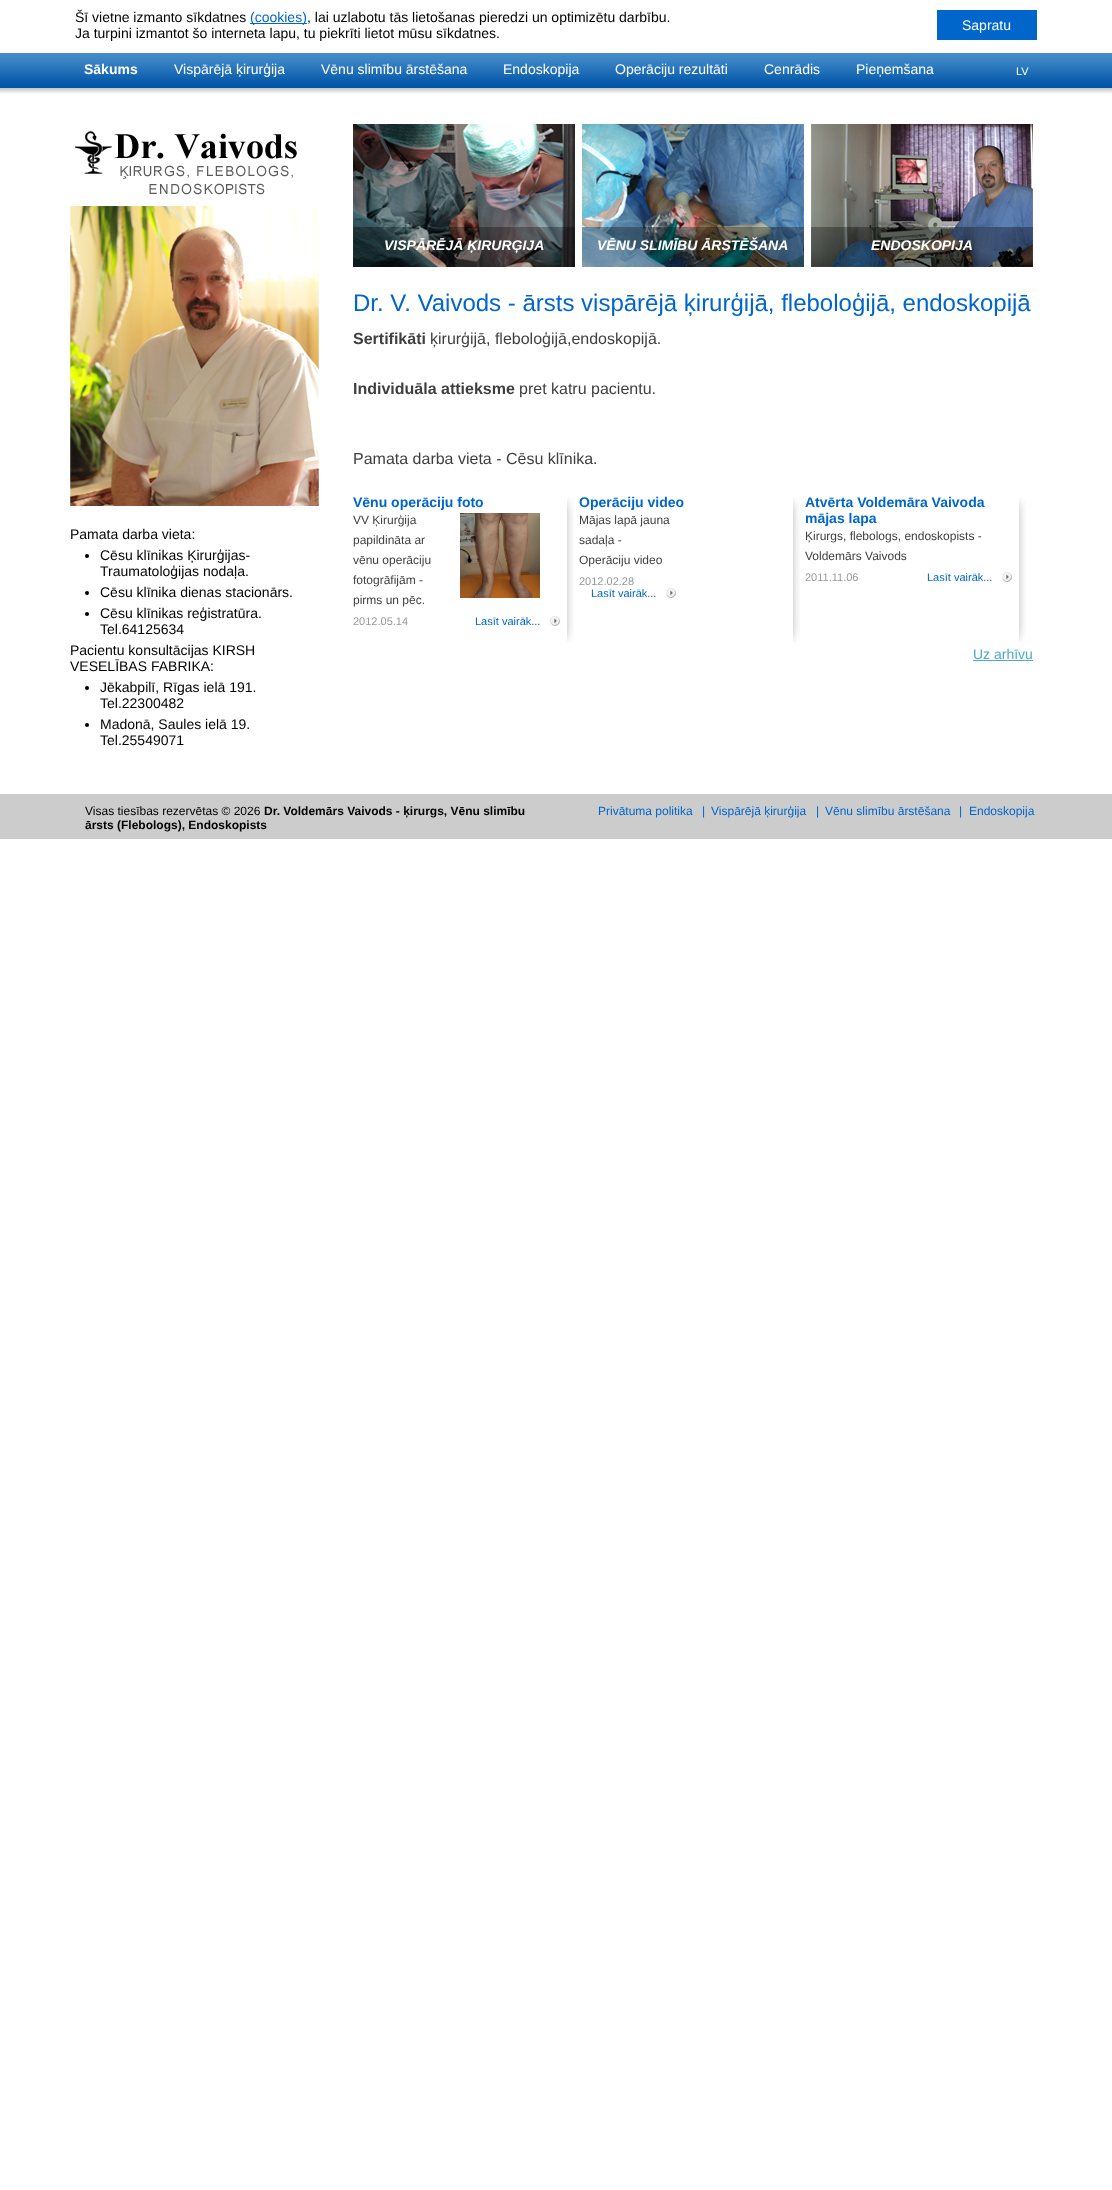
<?xml version="1.0" encoding="UTF-8"?>
<svg xmlns="http://www.w3.org/2000/svg" xmlns:xlink="http://www.w3.org/1999/xlink" width="1112" height="2190">
  <rect width="100%" height="100%" fill="#ffffff" />
  <rect x="250" y="23" width="57" height="1" fill="#0066cc" />
  <rect x="937" y="10" width="100" height="30" fill="#0066cc" />
  <image x="0" y="53" width="1112" height="41" xlink:href="image1.png" />
  <image x="75" y="131" width="222" height="64" xlink:href="image2.png" />
  <image x="70" y="206" width="249" height="300" xlink:href="image3.png" />
  <circle cx="87" cy="556" r="2" fill="#000000" />
  <circle cx="87" cy="593" r="2" fill="#000000" />
  <circle cx="87" cy="614" r="2" fill="#000000" />
  <circle cx="87" cy="688" r="2" fill="#000000" />
  <circle cx="87" cy="725" r="2" fill="#000000" />
  <image x="353" y="124" width="222" height="143" xlink:href="image4.png" />
  <rect x="353" y="227" width="222" height="40" fill="#000000" fill-opacity="0.31" />
  <image x="582" y="124" width="222" height="143" xlink:href="image5.png" />
  <rect x="582" y="227" width="222" height="40" fill="#000000" fill-opacity="0.31" />
  <image x="811" y="124" width="222" height="143" xlink:href="image6.png" />
  <rect x="811" y="227" width="222" height="40" fill="#000000" fill-opacity="0.31" />
  <image x="567" y="497" width="7" height="145" xlink:href="image7.png" />
  <image x="460" y="513" width="80" height="85" xlink:href="image8.png" />
  <image x="550" y="616" width="10" height="10" xlink:href="image9.png" />
  <image x="793" y="497" width="7" height="145" xlink:href="image7.png" />
  <image x="666" y="588" width="10" height="10" xlink:href="image9.png" />
  <image x="1019" y="497" width="7" height="145" xlink:href="image7.png" />
  <image x="1002" y="572" width="10" height="10" xlink:href="image9.png" />
  <rect x="973" y="660" width="60" height="1" fill="#4bacc6" />
  <rect y="794" width="1112" height="45" fill="#cccccc" />
  <text x="75" y="22" style="font-family: Liberation Sans; font-size: 14px; fill: #000000">Šī vietne izmanto sīkdatnes</text>
  <text x="250" y="22" style="font-family: Liberation Sans; font-size: 14px; fill: #0066cc">(cookies)</text>
  <text x="307" y="22" style="font-family: Liberation Sans; font-size: 14px; fill: #000000">, lai uzlabotu tās lietošanas pieredzi un optimizētu darbību.</text>
  <text x="75" y="38" style="font-family: Liberation Sans; font-size: 14px; fill: #000000">Ja turpini izmantot šo interneta lapu, tu piekrīti lietot mūsu sīkdatnes.</text>
  <text x="962" y="30" style="font-family: Liberation Sans; font-size: 14px; fill: #ffffff">Sapratu</text>
  <text x="84" y="74" style="font-family: Liberation Sans; font-size: 14px; font-weight: bold; fill: #ffffff">Sākums</text>
  <text x="174" y="74" style="font-family: Liberation Sans; font-size: 14px; fill: #ffffff">Vispārējā ķirurģija</text>
  <text x="321" y="74" style="font-family: Liberation Sans; font-size: 14px; fill: #ffffff">Vēnu slimību ārstēšana</text>
  <text x="503" y="74" style="font-family: Liberation Sans; font-size: 14px; fill: #ffffff">Endoskopija</text>
  <text x="615" y="74" style="font-family: Liberation Sans; font-size: 14px; fill: #ffffff">Operāciju rezultāti</text>
  <text x="764" y="74" style="font-family: Liberation Sans; font-size: 14px; fill: #ffffff">Cenrādis</text>
  <text x="856" y="74" style="font-family: Liberation Sans; font-size: 14px; fill: #ffffff">Pieņemšana</text>
  <text x="1016" y="75" style="font-family: Liberation Sans; font-size: 11px; fill: #ffffff">LV</text>
  <text x="70" y="539" style="font-family: Liberation Sans; font-size: 14px; fill: #000000">Pamata darba vieta:</text>
  <text x="100" y="560" style="font-family: Liberation Sans; font-size: 14px; fill: #000000">Cēsu klīnikas Ķirurģijas-</text>
  <text x="100" y="576" style="font-family: Liberation Sans; font-size: 14px; fill: #000000">Traumatoloģijas nodaļa.</text>
  <text x="100" y="597" style="font-family: Liberation Sans; font-size: 14px; fill: #000000">Cēsu klīnika dienas stacionārs.</text>
  <text x="100" y="618" style="font-family: Liberation Sans; font-size: 14px; fill: #000000">Cēsu klīnikas reģistratūra.</text>
  <text x="100" y="634" style="font-family: Liberation Sans; font-size: 14px; fill: #000000">Tel.64125634</text>
  <text x="70" y="655" style="font-family: Liberation Sans; font-size: 14px; fill: #000000">Pacientu konsultācijas KIRSH</text>
  <text x="70" y="671" style="font-family: Liberation Sans; font-size: 14px; fill: #000000">VESELĪBAS FABRIKA:</text>
  <text x="100" y="692" style="font-family: Liberation Sans; font-size: 14px; fill: #000000">Jēkabpilī, Rīgas ielā 191.</text>
  <text x="100" y="708" style="font-family: Liberation Sans; font-size: 14px; fill: #000000">Tel.22300482</text>
  <text x="100" y="729" style="font-family: Liberation Sans; font-size: 14px; fill: #000000">Madonā, Saules ielā 19.</text>
  <text x="100" y="745" style="font-family: Liberation Sans; font-size: 14px; fill: #000000">Tel.25549071</text>
  <text x="384" y="250" style="font-family: Liberation Sans; font-size: 14px; font-weight: bold; font-style: italic; fill: #ffffff">VISPĀRĒJĀ ĶIRURĢIJA</text>
  <text x="597" y="250" style="font-family: Liberation Sans; font-size: 14px; font-weight: bold; font-style: italic; fill: #ffffff">VĒNU SLIMĪBU ĀRSTĒŠANA</text>
  <text x="871" y="250" style="font-family: Liberation Sans; font-size: 14px; font-weight: bold; font-style: italic; fill: #ffffff">ENDOSKOPIJA</text>
  <text x="353" y="311" style="font-family: Liberation Sans; font-size: 24px; fill: #0066cc">Dr. V. Vaivods - ārsts vispārējā ķirurģijā, fleboloģijā, endoskopijā</text>
  <text x="353" y="344" style="font-family: Liberation Sans; font-size: 16px; font-weight: bold; fill: #3f3f3f">Sertifikāti</text>
  <text x="430" y="344" style="font-family: Liberation Sans; font-size: 16px; fill: #3f3f3f">ķirurģijā, fleboloģijā,endoskopijā.</text>
  <text x="353" y="394" style="font-family: Liberation Sans; font-size: 16px; font-weight: bold; fill: #3f3f3f">Individuāla attieksme</text>
  <text x="519" y="394" style="font-family: Liberation Sans; font-size: 16px; fill: #3f3f3f">pret katru pacientu.</text>
  <text x="353" y="464" style="font-family: Liberation Sans; font-size: 16px; fill: #3f3f3f">Pamata darba vieta - Cēsu klīnika.</text>
  <text x="353" y="507" style="font-family: Liberation Sans; font-size: 14px; font-weight: bold; fill: #0066cc">Vēnu operāciju foto</text>
  <text x="353" y="524" style="font-family: Liberation Sans; font-size: 12px; fill: #3f3f3f">VV Ķirurģija</text>
  <text x="353" y="544" style="font-family: Liberation Sans; font-size: 12px; fill: #3f3f3f">papildināta ar</text>
  <text x="353" y="564" style="font-family: Liberation Sans; font-size: 12px; fill: #3f3f3f">vēnu operāciju</text>
  <text x="353" y="584" style="font-family: Liberation Sans; font-size: 12px; fill: #3f3f3f">fotogrāfijām -</text>
  <text x="353" y="604" style="font-family: Liberation Sans; font-size: 12px; fill: #3f3f3f">pirms un pēc.</text>
  <text x="353" y="625" style="font-family: Liberation Sans; font-size: 11px; fill: #999999">2012.05.14</text>
  <text x="475" y="625" style="font-family: Liberation Sans; font-size: 11px; fill: #0066cc">Lasīt vairāk...</text>
  <text x="579" y="507" style="font-family: Liberation Sans; font-size: 14px; font-weight: bold; fill: #0066cc">Operāciju video</text>
  <text x="579" y="524" style="font-family: Liberation Sans; font-size: 12px; fill: #3f3f3f">Mājas lapā jauna</text>
  <text x="579" y="544" style="font-family: Liberation Sans; font-size: 12px; fill: #3f3f3f">sadaļa -</text>
  <text x="579" y="564" style="font-family: Liberation Sans; font-size: 12px; fill: #3f3f3f">Operāciju video</text>
  <text x="579" y="585" style="font-family: Liberation Sans; font-size: 11px; fill: #999999">2012.02.28</text>
  <text x="591" y="597" style="font-family: Liberation Sans; font-size: 11px; fill: #0066cc">Lasīt vairāk...</text>
  <text x="805" y="507" style="font-family: Liberation Sans; font-size: 14px; font-weight: bold; fill: #0066cc">Atvērta Voldemāra Vaivoda</text>
  <text x="805" y="523" style="font-family: Liberation Sans; font-size: 14px; font-weight: bold; fill: #0066cc">mājas lapa</text>
  <text x="805" y="540" style="font-family: Liberation Sans; font-size: 12px; fill: #3f3f3f">Ķirurgs, flebologs, endoskopists -</text>
  <text x="805" y="560" style="font-family: Liberation Sans; font-size: 12px; fill: #3f3f3f">Voldemārs Vaivods</text>
  <text x="805" y="581" style="font-family: Liberation Sans; font-size: 11px; fill: #999999">2011.11.06</text>
  <text x="927" y="581" style="font-family: Liberation Sans; font-size: 11px; fill: #0066cc">Lasīt vairāk...</text>
  <text x="973" y="659" style="font-family: Liberation Sans; font-size: 14px; fill: #4bacc6">Uz arhīvu</text>
  <text x="85" y="815" style="font-family: Liberation Sans; font-size: 12px; fill: #000000">Visas tiesības rezervētas © 2026</text>
  <text x="264" y="815" style="font-family: Liberation Sans; font-size: 12px; font-weight: bold; fill: #000000">Dr. Voldemārs Vaivods - ķirurgs, Vēnu slimību</text>
  <text x="85" y="829" style="font-family: Liberation Sans; font-size: 12px; font-weight: bold; fill: #000000">ārsts (Flebologs), Endoskopists</text>
  <text x="598" y="815" style="font-family: Liberation Sans; font-size: 12px; fill: #0066cc">Privātuma politika</text>
  <text x="702" y="815" style="font-family: Liberation Sans; font-size: 12px; fill: #0066cc">|</text>
  <text x="711" y="815" style="font-family: Liberation Sans; font-size: 12px; fill: #0066cc">Vispārējā ķirurģija</text>
  <text x="816" y="815" style="font-family: Liberation Sans; font-size: 12px; fill: #0066cc">|</text>
  <text x="825" y="815" style="font-family: Liberation Sans; font-size: 12px; fill: #0066cc">Vēnu slimību ārstēšana</text>
  <text x="959" y="815" style="font-family: Liberation Sans; font-size: 12px; fill: #0066cc">|</text>
  <text x="969" y="815" style="font-family: Liberation Sans; font-size: 12px; fill: #0066cc">Endoskopija</text>
</svg>
